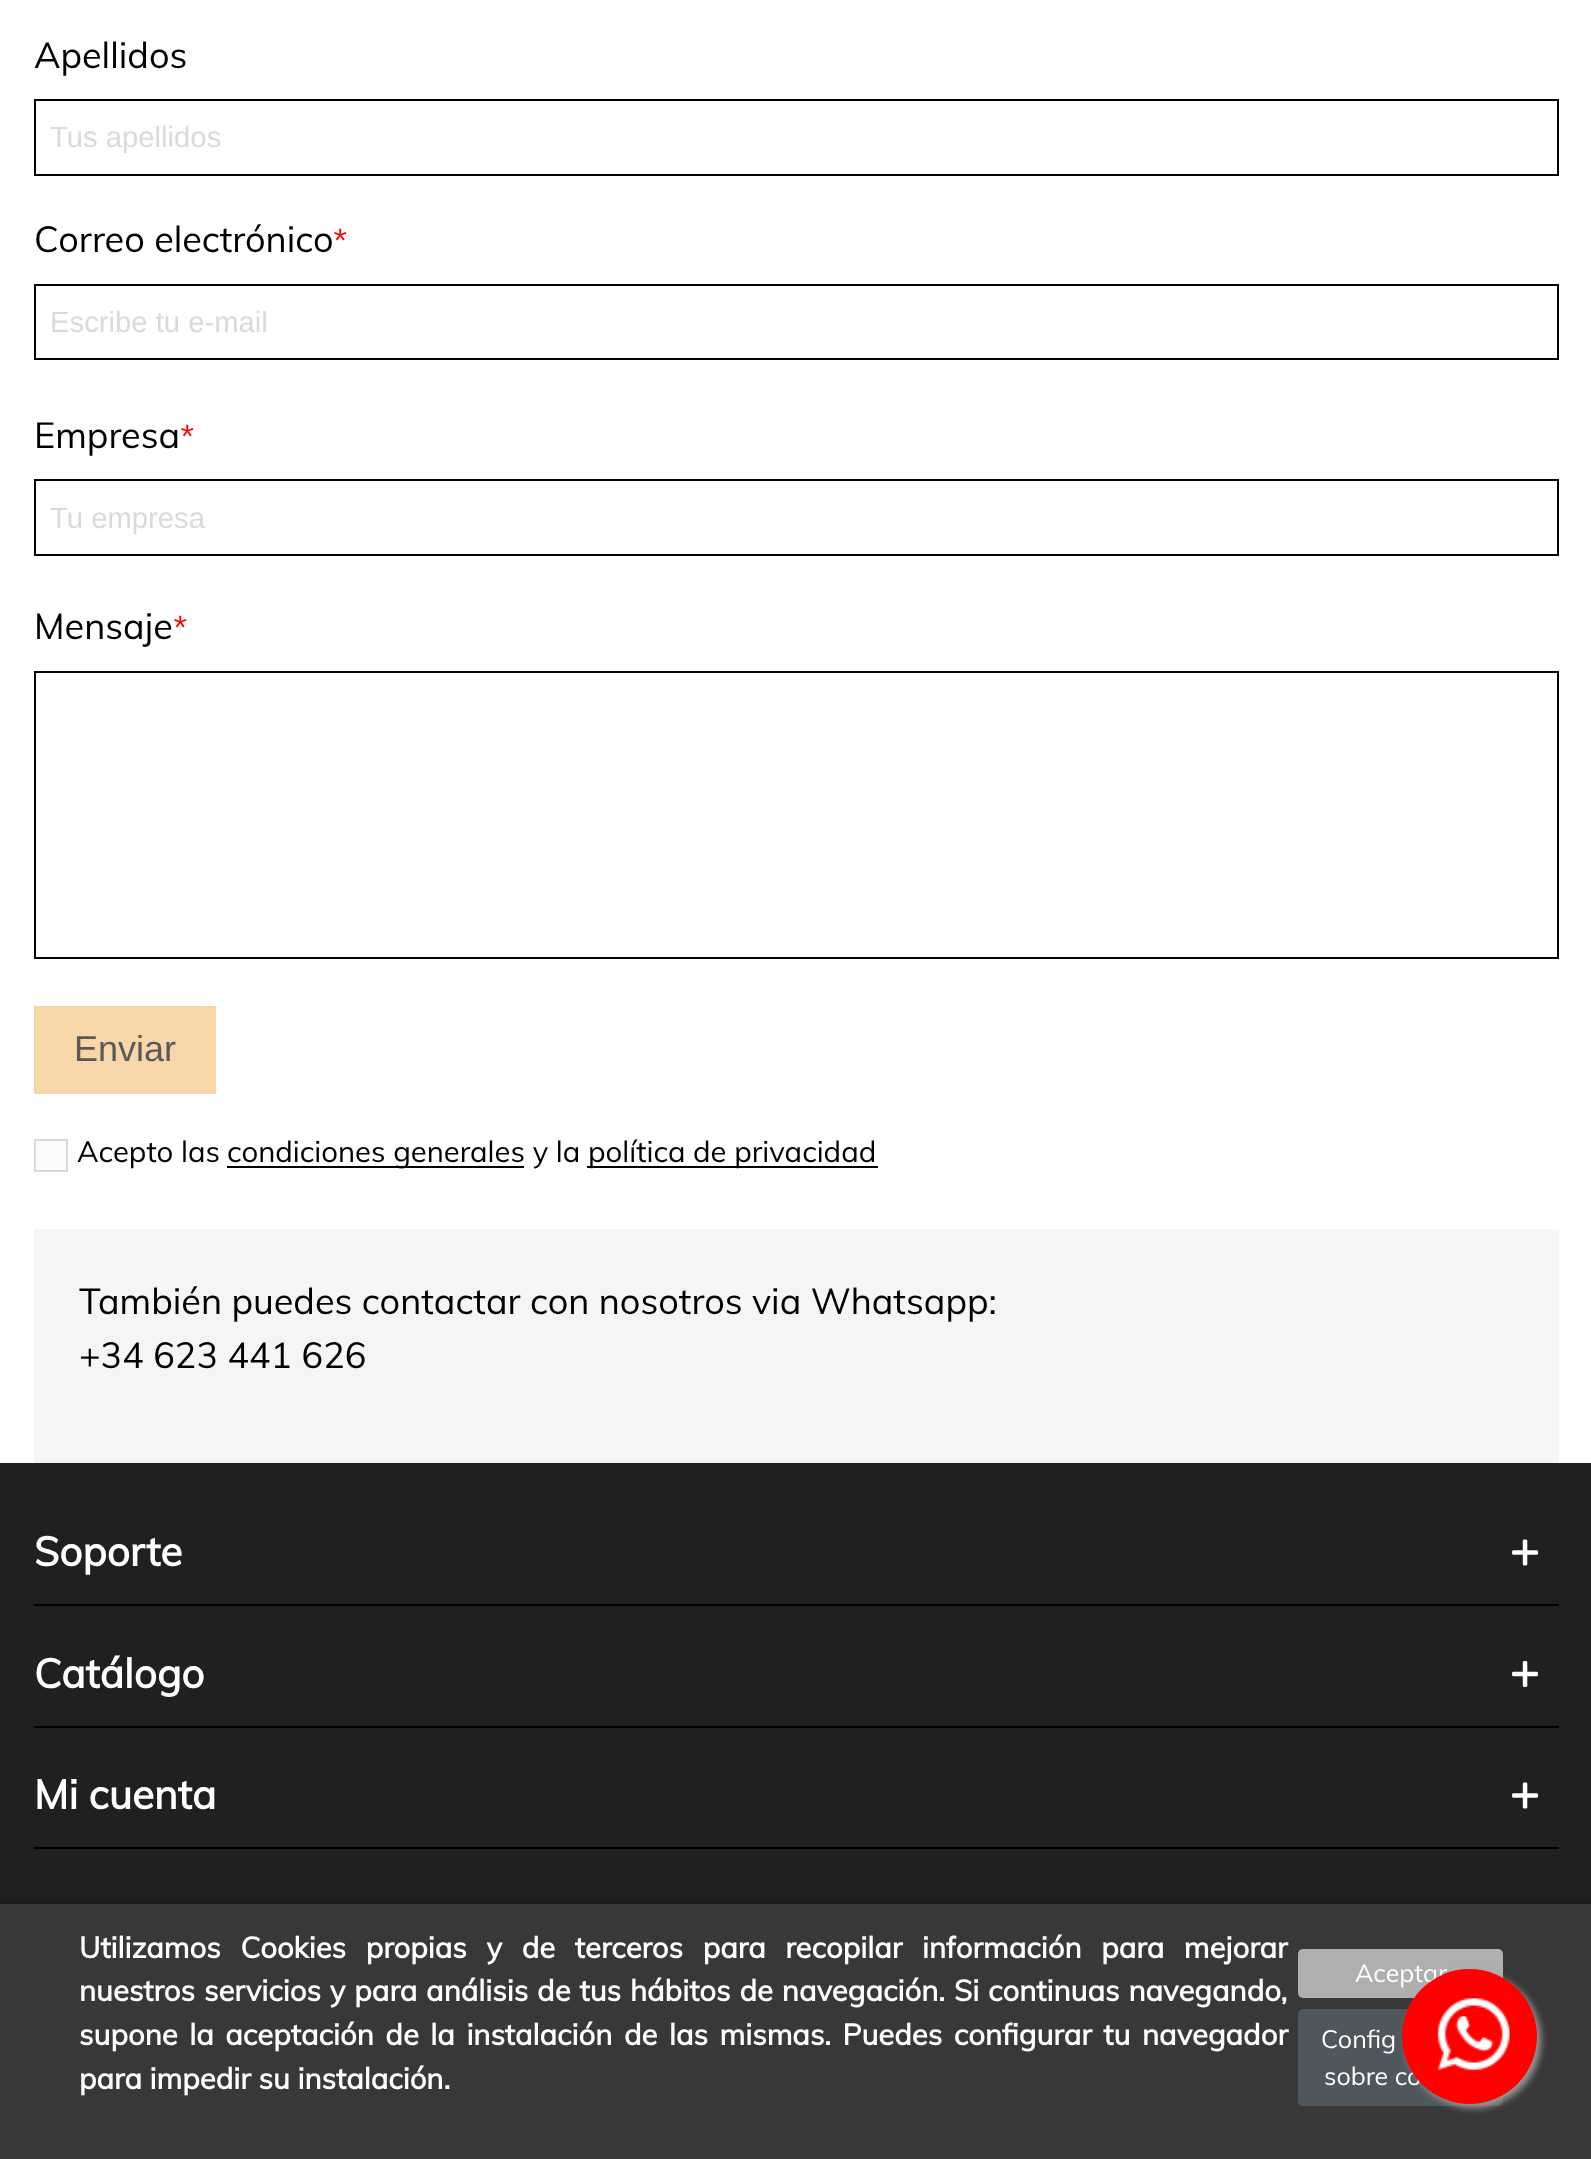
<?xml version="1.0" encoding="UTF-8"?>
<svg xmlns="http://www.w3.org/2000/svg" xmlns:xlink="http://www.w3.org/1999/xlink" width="1591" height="2159">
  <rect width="100%" height="100%" fill="#ffffff" />
  <rect x="35" y="100" width="1523" height="75" fill="none" stroke="#000000" stroke-width="2" />
  <rect x="35" y="285" width="1523" height="74" fill="none" stroke="#000000" stroke-width="2" />
  <rect x="35" y="480" width="1523" height="75" fill="none" stroke="#000000" stroke-width="2" />
  <rect x="35" y="672" width="1523" height="286" fill="none" stroke="#000000" stroke-width="2" />
  <rect x="34" y="1006" width="182" height="88" fill="#f7d6aa" />
  <rect x="35" y="1140" width="32" height="31" fill="#fcfcfc" stroke="#d9d9d9" stroke-width="2" />
  <rect x="227" y="1166" width="297" height="2" fill="#000000" />
  <rect x="587" y="1166" width="291" height="2" fill="#000000" />
  <rect x="34" y="1229" width="1525" height="234" fill="#f5f5f5" />
  <rect y="1463" width="1591" height="441" fill="#202020" />
  <rect x="34" y="1604" width="1525" height="2" fill="#000000" />
  <image x="1512" y="1539" width="27" height="27" xlink:href="image1.png" />
  <rect x="34" y="1726" width="1525" height="2" fill="#000000" />
  <image x="1512" y="1661" width="27" height="26" xlink:href="image2.png" />
  <rect x="34" y="1847" width="1525" height="2" fill="#000000" />
  <image x="1512" y="1782" width="27" height="27" xlink:href="image1.png" />
  <rect y="1904" width="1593" height="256" fill="#000000" fill-opacity="0.5" filter="blur(5.5px)" />
  <rect y="1904" width="1591" height="255" fill="#383838" />
  <rect x="1298" y="1949" width="205" height="49" rx="5" fill="#afafaf" />
  <rect x="1298" y="2009" width="205" height="97" rx="5" fill="#50575c" />
  <rect x="1406" y="1973" width="135" height="135" rx="67.5" fill="#999999" filter="blur(3.5px)" />
  <text x="34" y="68" style="font-family: Muli; font-size: 36px; fill: #000000">Apellidos</text>
  <text x="50" y="147" style="font-family: Liberation Sans; font-size: 29.25px; fill: #dadada">Tus apellidos</text>
  <text x="34" y="252" style="font-family: Muli; font-size: 36px; fill: #000000">Correo electrónico</text>
  <text x="333" y="252" style="font-family: Muli; font-size: 32px; fill: #ff0000">*</text>
  <text x="50" y="332" style="font-family: Liberation Sans; font-size: 29.25px; fill: #dadada">Escribe tu e-mail</text>
  <text x="34" y="448" style="font-family: Muli; font-size: 36px; fill: #000000">Empresa</text>
  <text x="180" y="448" style="font-family: Muli; font-size: 32px; fill: #ff0000">*</text>
  <text x="50" y="528" style="font-family: Liberation Sans; font-size: 29.25px; fill: #dadada">Tu empresa</text>
  <text x="34" y="639" style="font-family: Muli; font-size: 36px; fill: #000000">Mensaje</text>
  <text x="173" y="639" style="font-family: Muli; font-size: 32px; fill: #ff0000">*</text>
  <text x="74" y="1061" style="font-family: Liberation Sans; font-size: 36px; fill: #595959">Enviar</text>
  <text x="77" y="1162" style="font-family: Muli; font-size: 29.25px; fill: #000000">Acepto las</text>
  <text x="227" y="1162" style="font-family: Muli; font-size: 29.25px; fill: #000000">condiciones generales y la</text>
  <text x="588" y="1162" style="font-family: Muli; font-size: 29.25px; fill: #000000">política de privacidad</text>
  <text x="79" y="1314" style="font-family: Muli; font-size: 36px; fill: #000000">También puedes contactar con nosotros via Whatsapp:</text>
  <text x="79" y="1368" style="font-family: Muli; font-size: 36px; fill: #000000">+34 623 441 626</text>
  <text x="34" y="1566" style="font-family: Muli; font-size: 40.5px; font-weight: bold; fill: #ffffff">Soporte</text>
  <text x="34" y="1688" style="font-family: Muli; font-size: 40.5px; font-weight: bold; fill: #ffffff">Catálogo</text>
  <text x="34" y="1809" style="font-family: Muli; font-size: 40.5px; font-weight: bold; fill: #ffffff">Mi cuenta</text>
  <text x="79" y="1958" word-spacing="12" style="font-family: Muli; font-size: 29.25px; font-weight: bold; fill: #ffffff">Utilizamos Cookies propias y de terceros para recopilar información para mejorar</text>
  <text x="79" y="2001" word-spacing="1.25" style="font-family: Muli; font-size: 29.25px; font-weight: bold; fill: #ffffff">nuestros servicios y para análisis de tus hábitos de navegación. Si continuas navegando,</text>
  <text x="79" y="2045" word-spacing="3.9" style="font-family: Muli; font-size: 29.25px; font-weight: bold; fill: #ffffff">supone la aceptación de la instalación de las mismas. Puedes configurar tu navegador</text>
  <text x="79" y="2089" style="font-family: Muli; font-size: 29.25px; font-weight: bold; fill: #ffffff">para impedir su instalación.</text>
  <text x="1355" y="1982" style="font-family: Muli; font-size: 25px; fill: #ffffff">Aceptar</text>
  <text x="1321" y="2048" style="font-family: Muli; font-size: 25px; fill: #ffffff">Config</text>
  <text x="1324" y="2085" style="font-family: Muli; font-size: 25px; fill: #ffffff">sobre co</text>
  <circle cx="1469.5" cy="2036.5" r="67.5" fill="#ff0000" />
  <image x="1437" y="1998" width="73" height="73" xlink:href="image3.png" />
</svg>
